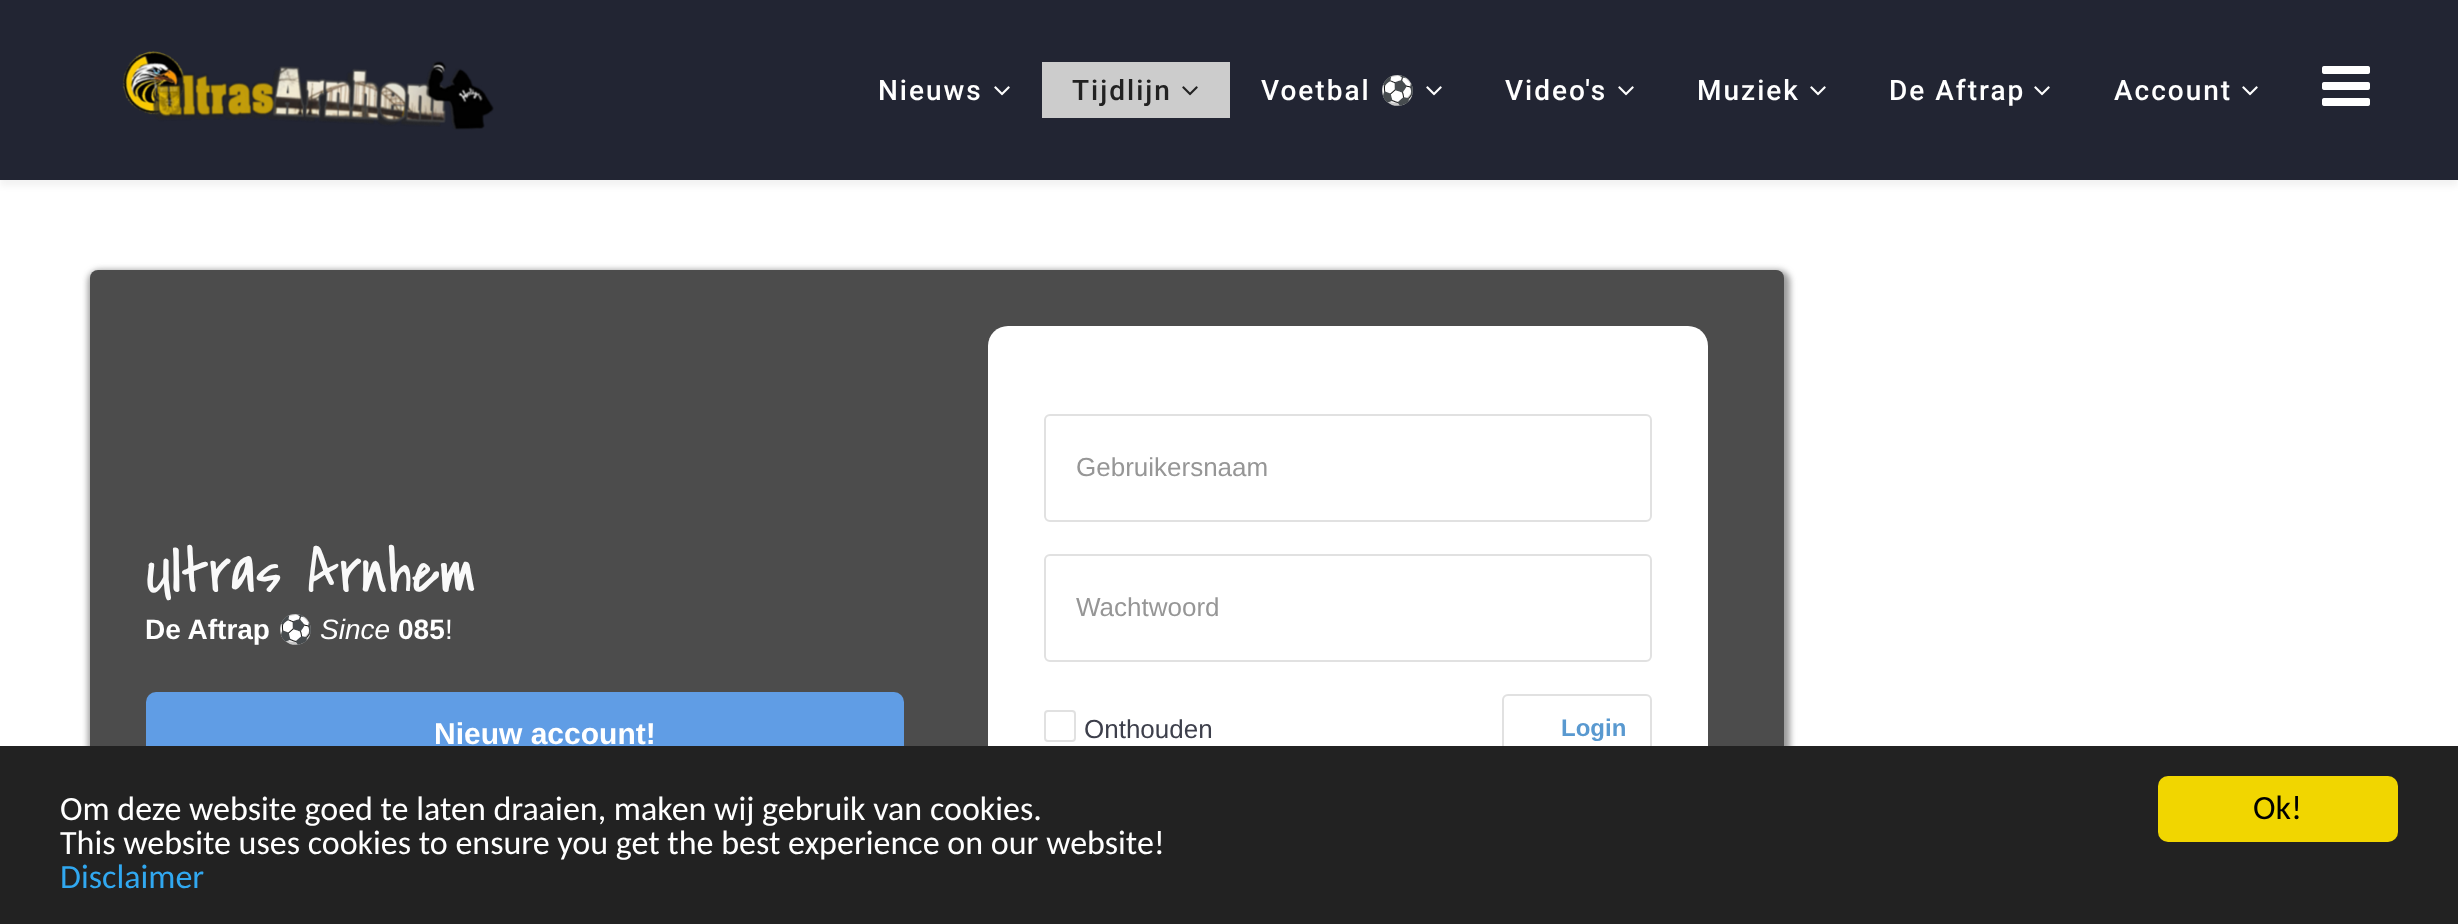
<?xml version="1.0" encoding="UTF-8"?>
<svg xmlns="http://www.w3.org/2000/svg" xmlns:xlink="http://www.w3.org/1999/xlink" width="2458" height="924">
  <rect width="100%" height="100%" fill="#ffffff" />
  <rect y="6" width="2458" height="180" fill="#000000" fill-opacity="0.05" filter="blur(3px)" />
  <rect width="2458" height="180" fill="#222533" />
  <image x="122" y="51" width="372" height="79" xlink:href="image1.png" />
  <image x="994" y="86" width="16" height="10" xlink:href="image2.png" />
  <rect x="1042" y="62" width="188" height="56" fill="#cccccc" />
  <image x="1182" y="86" width="16" height="10" xlink:href="image3.png" />
  <image x="1426" y="86" width="16" height="10" xlink:href="image2.png" />
  <image x="1618" y="86" width="16" height="10" xlink:href="image2.png" />
  <image x="1810" y="86" width="16" height="10" xlink:href="image2.png" />
  <image x="2034" y="86" width="16" height="10" xlink:href="image2.png" />
  <image x="2242" y="86" width="16" height="10" xlink:href="image2.png" />
  <image x="2322" y="66" width="48" height="40" xlink:href="image4.png" />
  <rect x="88" y="270" width="1702" height="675" rx="12" fill="#4b4b4b" fill-opacity="0.56" filter="blur(3px)" />
  <rect x="90" y="270" width="1694" height="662" rx="8" fill="#4c4c4c" />
  <rect x="146" y="692" width="758" height="84" rx="10" fill="#609de5" />
  <rect x="988" y="326" width="720" height="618" rx="20" fill="#ffffff" />
  <rect x="1045" y="415" width="606" height="106" rx="5" fill="none" stroke="#e1e1e1" stroke-width="2" />
  <rect x="1045" y="555" width="606" height="106" rx="5" fill="none" stroke="#e1e1e1" stroke-width="2" />
  <rect x="1045" y="711" width="30" height="30" rx="3" fill="none" stroke="#e1e1e1" stroke-width="2" />
  <rect x="1503" y="695" width="148" height="66" rx="5" fill="none" stroke="#e1e1e1" stroke-width="2" />
  <rect y="746" width="2458" height="178" fill="#222222" />
  <rect x="2158" y="776" width="240" height="66" rx="10" fill="#f1d600" />
  <text x="878" y="100" style="font-family: Roboto; font-size: 28px; font-weight: 500; letter-spacing: 2px; fill: #ffffff">Nieuws</text>
  <text x="1072" y="100" style="font-family: Roboto; font-size: 28px; font-weight: 500; letter-spacing: 2px; fill: #222222">Tijdlijn</text>
  <text x="1261" y="100" style="font-family: Roboto; font-size: 28px; font-weight: 500; letter-spacing: 2px; fill: #ffffff">Voetbal</text>
  <text x="1380" y="100" style="font-family: Noto Color Emoji; font-size: 28px; letter-spacing: 2px; fill: #ffffff">⚽</text>
  <text x="1505" y="100" style="font-family: Roboto; font-size: 28px; font-weight: 500; letter-spacing: 2px; fill: #ffffff">Video's</text>
  <text x="1697" y="100" style="font-family: Roboto; font-size: 28px; font-weight: 500; letter-spacing: 2px; fill: #ffffff">Muziek</text>
  <text x="1889" y="100" style="font-family: Roboto; font-size: 28px; font-weight: 500; letter-spacing: 2px; fill: #ffffff">De Aftrap</text>
  <text x="2114" y="100" style="font-family: Roboto; font-size: 28px; font-weight: 500; letter-spacing: 2px; fill: #ffffff">Account</text>
  <text x="145" y="592" style="font-family: Covered By Your Grace; font-size: 64px; fill: #f9f9f9">Ultras Arnhem</text>
  <text x="145" y="639" style="font-family: Liberation Sans; font-size: 28px; font-weight: bold; fill: #ffffff">De Aftrap</text>
  <text x="278" y="639" style="font-family: Noto Color Emoji; font-size: 28px; fill: #ffffff">⚽</text>
  <text x="320" y="639" style="font-family: Liberation Sans; font-size: 28px; font-style: italic; fill: #ffffff">Since</text>
  <text x="398" y="639" style="font-family: Liberation Sans; font-size: 28px; font-weight: bold; fill: #ffffff">085</text>
  <text x="445" y="639" style="font-family: Liberation Sans; font-size: 28px; fill: #ffffff">!</text>
  <text x="434" y="744" style="font-family: Liberation Sans; font-size: 30px; font-weight: bold; fill: #ffffff">Nieuw account!</text>
  <text x="1076" y="476" style="font-family: Liberation Sans; font-size: 26px; fill: #969696">Gebruikersnaam</text>
  <text x="1076" y="616" style="font-family: Liberation Sans; font-size: 26px; fill: #969696">Wachtwoord</text>
  <text x="1084" y="738" style="font-family: Liberation Sans; font-size: 26px; fill: #3d3f4b">Onthouden</text>
  <text x="1561" y="736" style="font-family: Liberation Sans; font-size: 24px; font-weight: bold; fill: #5999d0">Login</text>
  <text x="60" y="820" style="font-family: Carlito; font-size: 34px; fill: #ffffff">Om deze website goed te laten draaien, maken wij gebruik van cookies.</text>
  <text x="60" y="854" style="font-family: Carlito; font-size: 34px; fill: #ffffff">This website uses cookies to ensure you get the best experience on our website!</text>
  <text x="60" y="888" style="font-family: Carlito; font-size: 34px; fill: #31a8f0">Disclaimer</text>
  <text x="2253" y="819" style="font-family: Carlito; font-size: 34px; fill: #000000">Ok!</text>
</svg>
